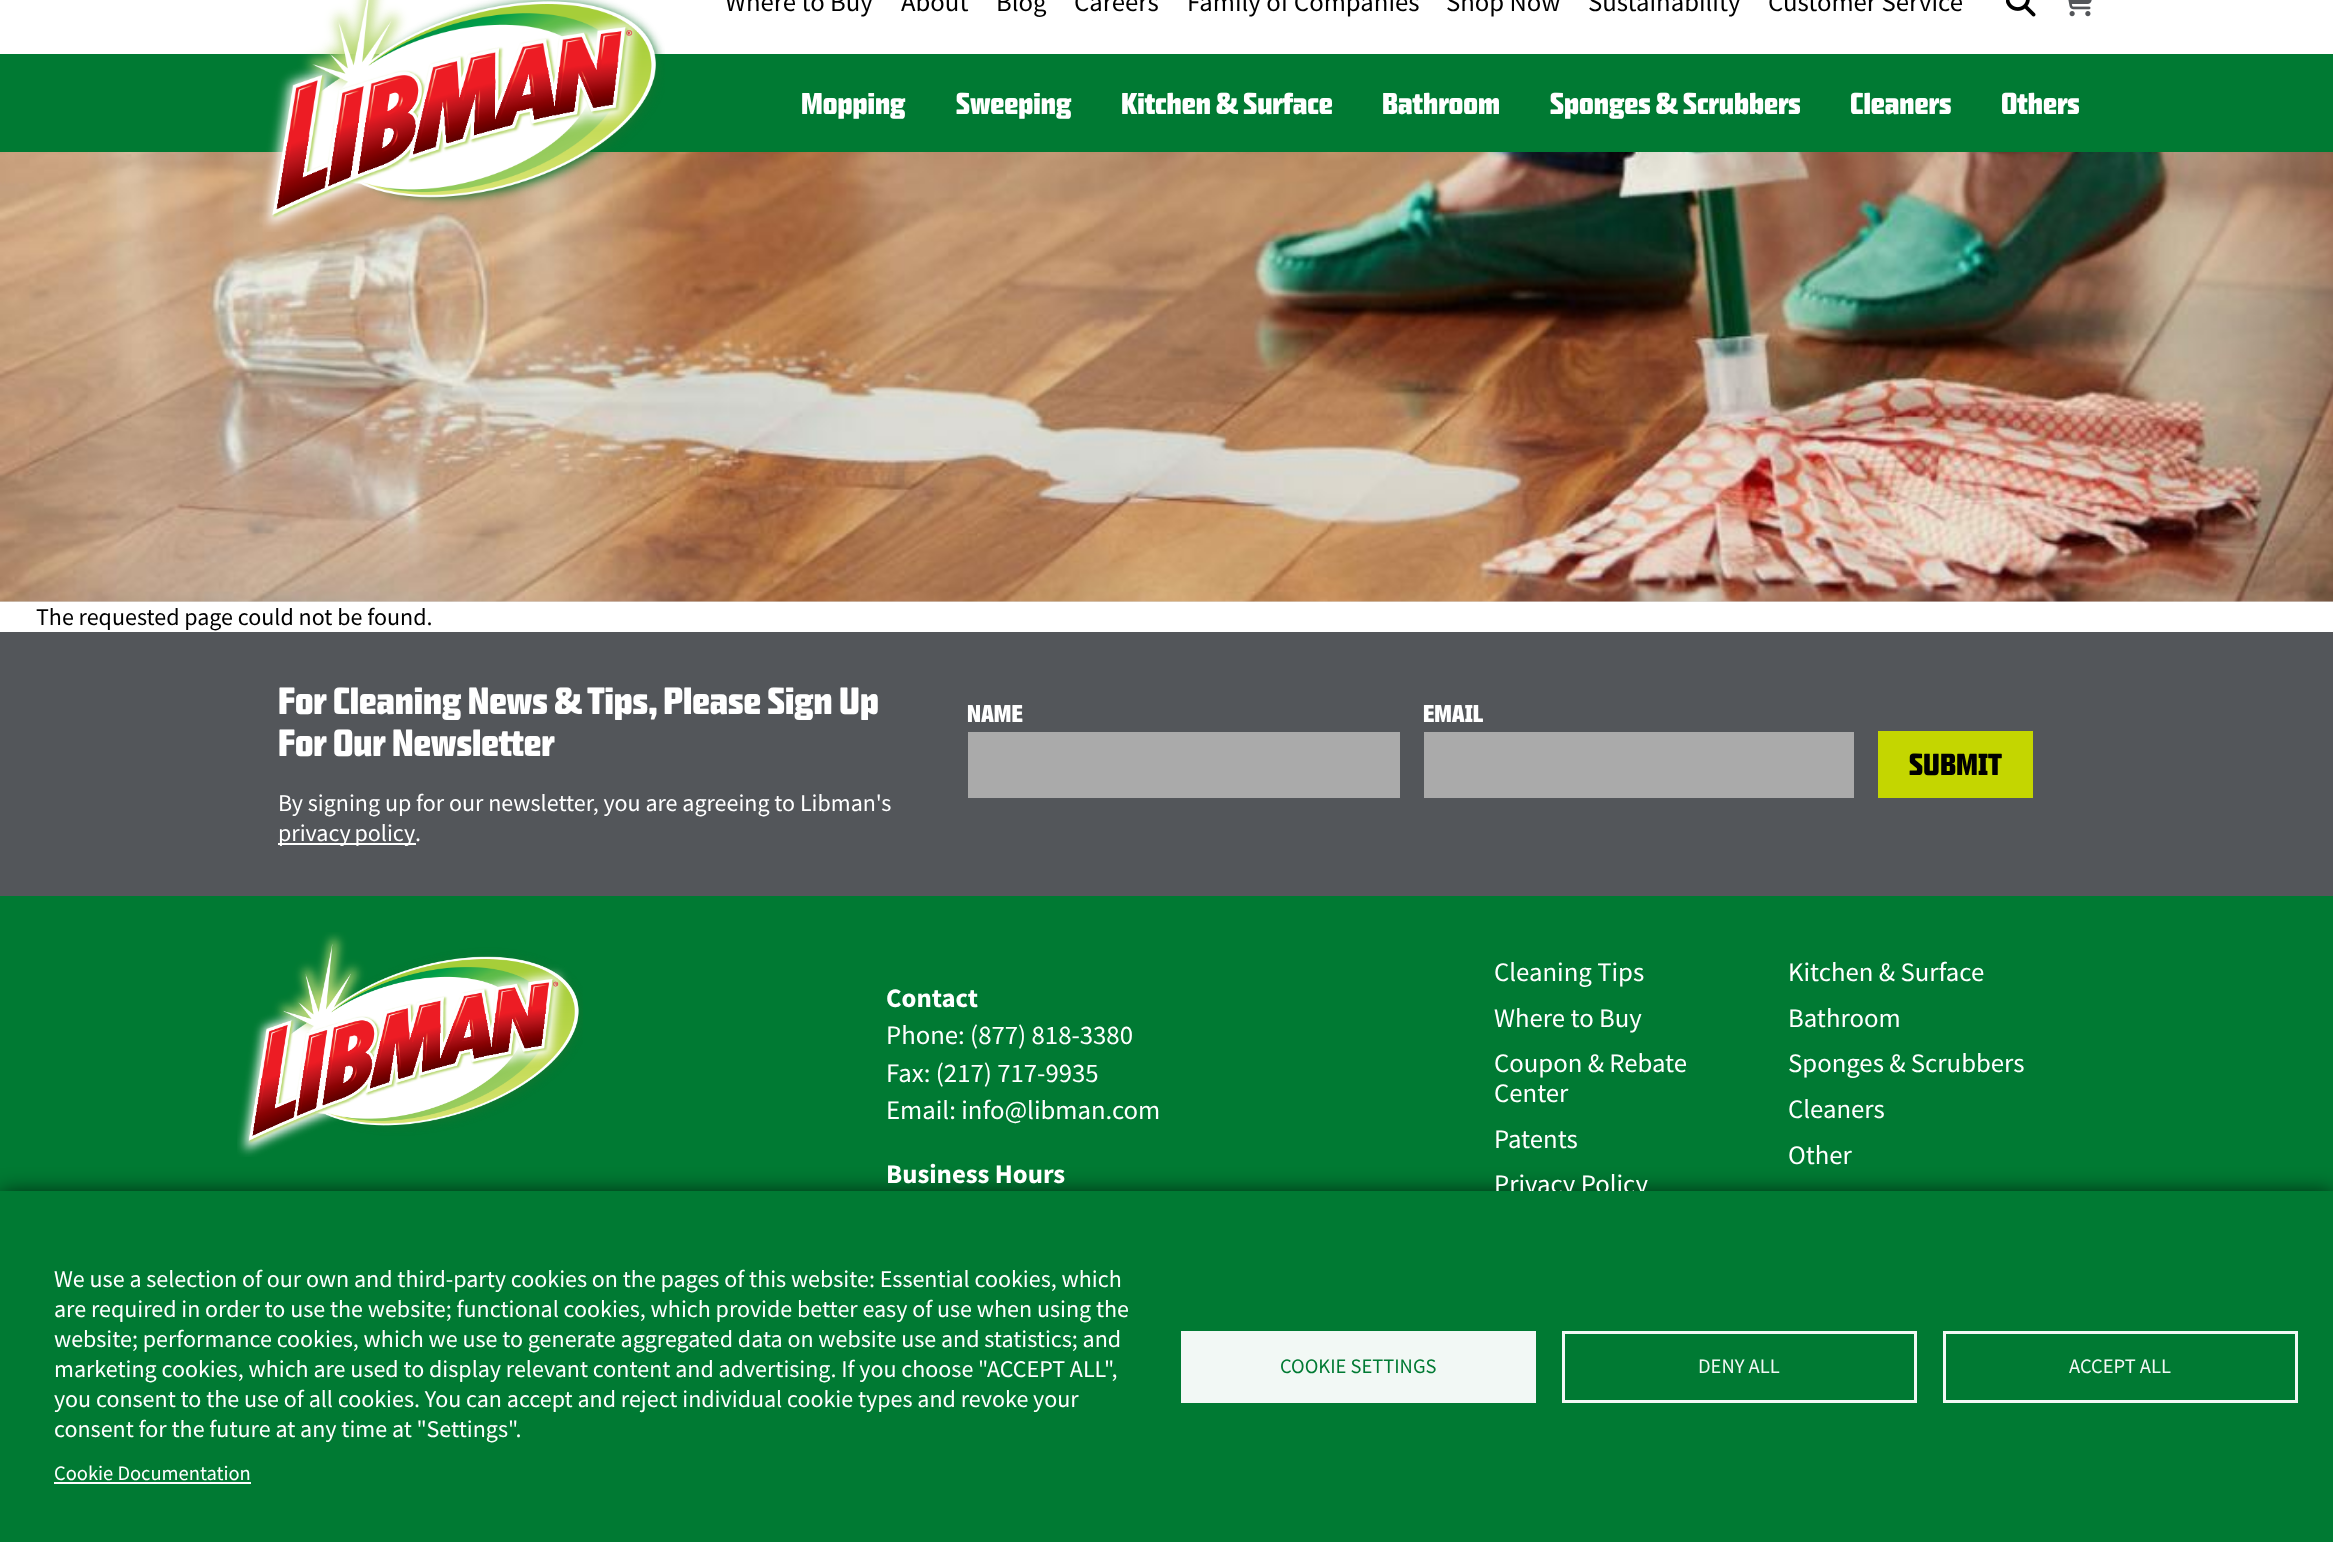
<?xml version="1.0" encoding="UTF-8"?>
<svg xmlns="http://www.w3.org/2000/svg" xmlns:xlink="http://www.w3.org/1999/xlink" width="2333" height="1542">
  <rect width="100%" height="100%" fill="#ffffff" />
  <image x="2006" y="0" width="30" height="17" xlink:href="image1.png" />
  <image x="2068" y="0" width="24" height="17" xlink:href="image2.png" />
  <rect y="54" width="2333" height="98" fill="#007a33" />
  <rect y="601" width="2333" height="1" fill="#e1e1e1" />
  <image x="0" y="152" width="2333" height="450" xlink:href="image4.png" />
  <image x="259" y="0" width="406" height="232" xlink:href="image3.png" />
  <rect y="632" width="2333" height="264" fill="#53565a" />
  <rect x="278" y="843" width="138" height="2" fill="#ffffff" />
  <rect x="968" y="732" width="432" height="66" fill="#aaaaaa" />
  <rect x="1424" y="732" width="430" height="66" fill="#aaaaaa" />
  <rect x="1878" y="731" width="155" height="67" fill="#c4d600" />
  <rect y="896" width="2333" height="295" fill="#007a33" />
  <image x="237" y="932" width="346" height="225" xlink:href="image5.png" />
  <rect y="1193" width="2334" height="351" fill="#000000" fill-opacity="0.75" filter="blur(11px)" />
  <text x="725" y="11" style="font-family: Source Sans Pro; font-size: 26.75px; fill: #000000">Where to Buy</text>
  <text x="901" y="11" style="font-family: Source Sans Pro; font-size: 26.75px; fill: #000000">About</text>
  <text x="996" y="11" style="font-family: Source Sans Pro; font-size: 26.75px; fill: #000000">Blog</text>
  <text x="1074" y="11" style="font-family: Source Sans Pro; font-size: 26.75px; fill: #000000">Careers</text>
  <text x="1187" y="11" style="font-family: Source Sans Pro; font-size: 26.75px; fill: #000000">Family of Companies</text>
  <text x="1446" y="11" style="font-family: Source Sans Pro; font-size: 26.75px; fill: #000000">Shop Now</text>
  <text x="1588" y="11" style="font-family: Source Sans Pro; font-size: 26.75px; fill: #000000">Sustainability</text>
  <text x="1768" y="11" style="font-family: Source Sans Pro; font-size: 26.75px; fill: #000000">Customer Service</text>
  <text x="801" y="114" style="font-family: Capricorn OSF; font-size: 29.75px; font-weight: 900; fill: #ffffff">Mopping</text>
  <text x="956" y="114" style="font-family: Capricorn OSF; font-size: 29.75px; font-weight: 900; fill: #ffffff">Sweeping</text>
  <text x="1121" y="114" style="font-family: Capricorn OSF; font-size: 29.75px; font-weight: 900; fill: #ffffff">Kitchen &amp; Surface</text>
  <text x="1382" y="114" style="font-family: Capricorn OSF; font-size: 29.75px; font-weight: 900; fill: #ffffff">Bathroom</text>
  <text x="1550" y="114" style="font-family: Capricorn OSF; font-size: 29.75px; font-weight: 900; fill: #ffffff">Sponges &amp; Scrubbers</text>
  <text x="1850" y="114" style="font-family: Capricorn OSF; font-size: 29.75px; font-weight: 900; fill: #ffffff">Cleaners</text>
  <text x="2001" y="114" style="font-family: Capricorn OSF; font-size: 29.75px; font-weight: 900; fill: #ffffff">Others</text>
  <text x="36" y="625" style="font-family: Source Sans Pro; font-size: 24px; fill: #000000">The requested page could not be found.</text>
  <text x="278" y="714" style="font-family: Capricorn OSF; font-size: 37.25px; font-weight: 900; fill: #ffffff">For Cleaning News &amp; Tips, Please Sign Up</text>
  <text x="278" y="756" style="font-family: Capricorn OSF; font-size: 37.25px; font-weight: 900; fill: #ffffff">For Our Newsletter</text>
  <text x="278" y="811" style="font-family: Source Sans Pro; font-size: 24px; fill: #ffffff">By signing up for our newsletter, you are agreeing to Libman's</text>
  <text x="278" y="841" word-spacing="-1" style="font-family: Source Sans Pro; font-size: 24px; fill: #ffffff">privacy policy</text>
  <text x="415" y="841" style="font-family: Source Sans Pro; font-size: 24px; fill: #ffffff">.</text>
  <text x="967" y="722" style="font-family: Capricorn OSF; font-size: 24px; font-weight: 900; fill: #ffffff">NAME</text>
  <text x="1423" y="722" style="font-family: Capricorn OSF; font-size: 24px; font-weight: 900; fill: #ffffff">EMAIL</text>
  <text x="1909" y="775" style="font-family: Capricorn OSF; font-size: 30px; font-weight: 900; fill: #000000">SUBMIT</text>
  <text x="886" y="1007" style="font-family: Source Sans Pro; font-size: 26.75px; font-weight: bold; fill: #ffffff">Contact</text>
  <text x="886" y="1044" style="font-family: Source Sans Pro; font-size: 26.75px; fill: #ffffff">Phone: (877) 818-3380</text>
  <text x="886" y="1082" style="font-family: Source Sans Pro; font-size: 26.75px; fill: #ffffff">Fax: (217) 717-9935</text>
  <text x="886" y="1119" style="font-family: Source Sans Pro; font-size: 26.75px; fill: #ffffff">Email: info@libman.com</text>
  <text x="886" y="1183" style="font-family: Source Sans Pro; font-size: 26.75px; font-weight: bold; fill: #ffffff">Business Hours</text>
  <text x="1494" y="981" style="font-family: Source Sans Pro; font-size: 26.75px; fill: #ffffff">Cleaning Tips</text>
  <text x="1788" y="981" style="font-family: Source Sans Pro; font-size: 26.75px; fill: #ffffff">Kitchen &amp; Surface</text>
  <text x="1494" y="1027" style="font-family: Source Sans Pro; font-size: 26.75px; fill: #ffffff">Where to Buy</text>
  <text x="1788" y="1027" style="font-family: Source Sans Pro; font-size: 26.75px; fill: #ffffff">Bathroom</text>
  <text x="1494" y="1072" style="font-family: Source Sans Pro; font-size: 26.75px; fill: #ffffff">Coupon &amp; Rebate</text>
  <text x="1494" y="1102" style="font-family: Source Sans Pro; font-size: 26.75px; fill: #ffffff">Center</text>
  <text x="1788" y="1072" style="font-family: Source Sans Pro; font-size: 26.75px; fill: #ffffff">Sponges &amp; Scrubbers</text>
  <text x="1788" y="1118" style="font-family: Source Sans Pro; font-size: 26.75px; fill: #ffffff">Cleaners</text>
  <text x="1494" y="1148" style="font-family: Source Sans Pro; font-size: 26.75px; fill: #ffffff">Patents</text>
  <text x="1788" y="1164" style="font-family: Source Sans Pro; font-size: 26.75px; fill: #ffffff">Other</text>
  <text x="1494" y="1193" style="font-family: Source Sans Pro; font-size: 26.75px; fill: #ffffff">Privacy Policy</text>
  <rect y="1191" width="2333" height="351" fill="#007a33" />
  <text x="54" y="1287" style="font-family: Source Sans Pro; font-size: 24px; fill: #ffffff">We use a selection of our own and third-party cookies on the pages of this website: Essential cookies, which</text>
  <text x="54" y="1317" style="font-family: Source Sans Pro; font-size: 24px; fill: #ffffff">are required in order to use the website; functional cookies, which provide better easy of use when using the</text>
  <text x="54" y="1347" style="font-family: Source Sans Pro; font-size: 24px; fill: #ffffff">website; performance cookies, which we use to generate aggregated data on website use and statistics; and</text>
  <text x="54" y="1377" style="font-family: Source Sans Pro; font-size: 24px; fill: #ffffff">marketing cookies, which are used to display relevant content and advertising. If you choose "ACCEPT ALL",</text>
  <text x="54" y="1407" style="font-family: Source Sans Pro; font-size: 24px; fill: #ffffff">you consent to the use of all cookies. You can accept and reject individual cookie types and revoke your</text>
  <text x="54" y="1437" style="font-family: Source Sans Pro; font-size: 24px; fill: #ffffff">consent for the future at any time at "Settings".</text>
  <text x="54" y="1480" style="font-family: Source Sans Pro; font-size: 20.5px; fill: #ffffff">Cookie Documentation</text>
  <rect x="54" y="1482" width="197" height="2" fill="#ffffff" />
  <rect x="1181" y="1331" width="355" height="72" fill="#f2f8f5" />
  <text x="1280" y="1373" style="font-family: Source Sans Pro; font-size: 20.5px; fill: #007a33">COOKIE SETTINGS</text>
  <rect x="1563.5" y="1332.5" width="352" height="69" fill="none" stroke="#f2f8f5" stroke-width="3" />
  <text x="1698" y="1373" style="font-family: Source Sans Pro; font-size: 20.5px; fill: #f2f8f5">DENY ALL</text>
  <rect x="1944.5" y="1332.5" width="352" height="69" fill="none" stroke="#f2f8f5" stroke-width="3" />
  <text x="2069" y="1373" style="font-family: Source Sans Pro; font-size: 20.5px; fill: #f2f8f5">ACCEPT ALL</text>
</svg>
